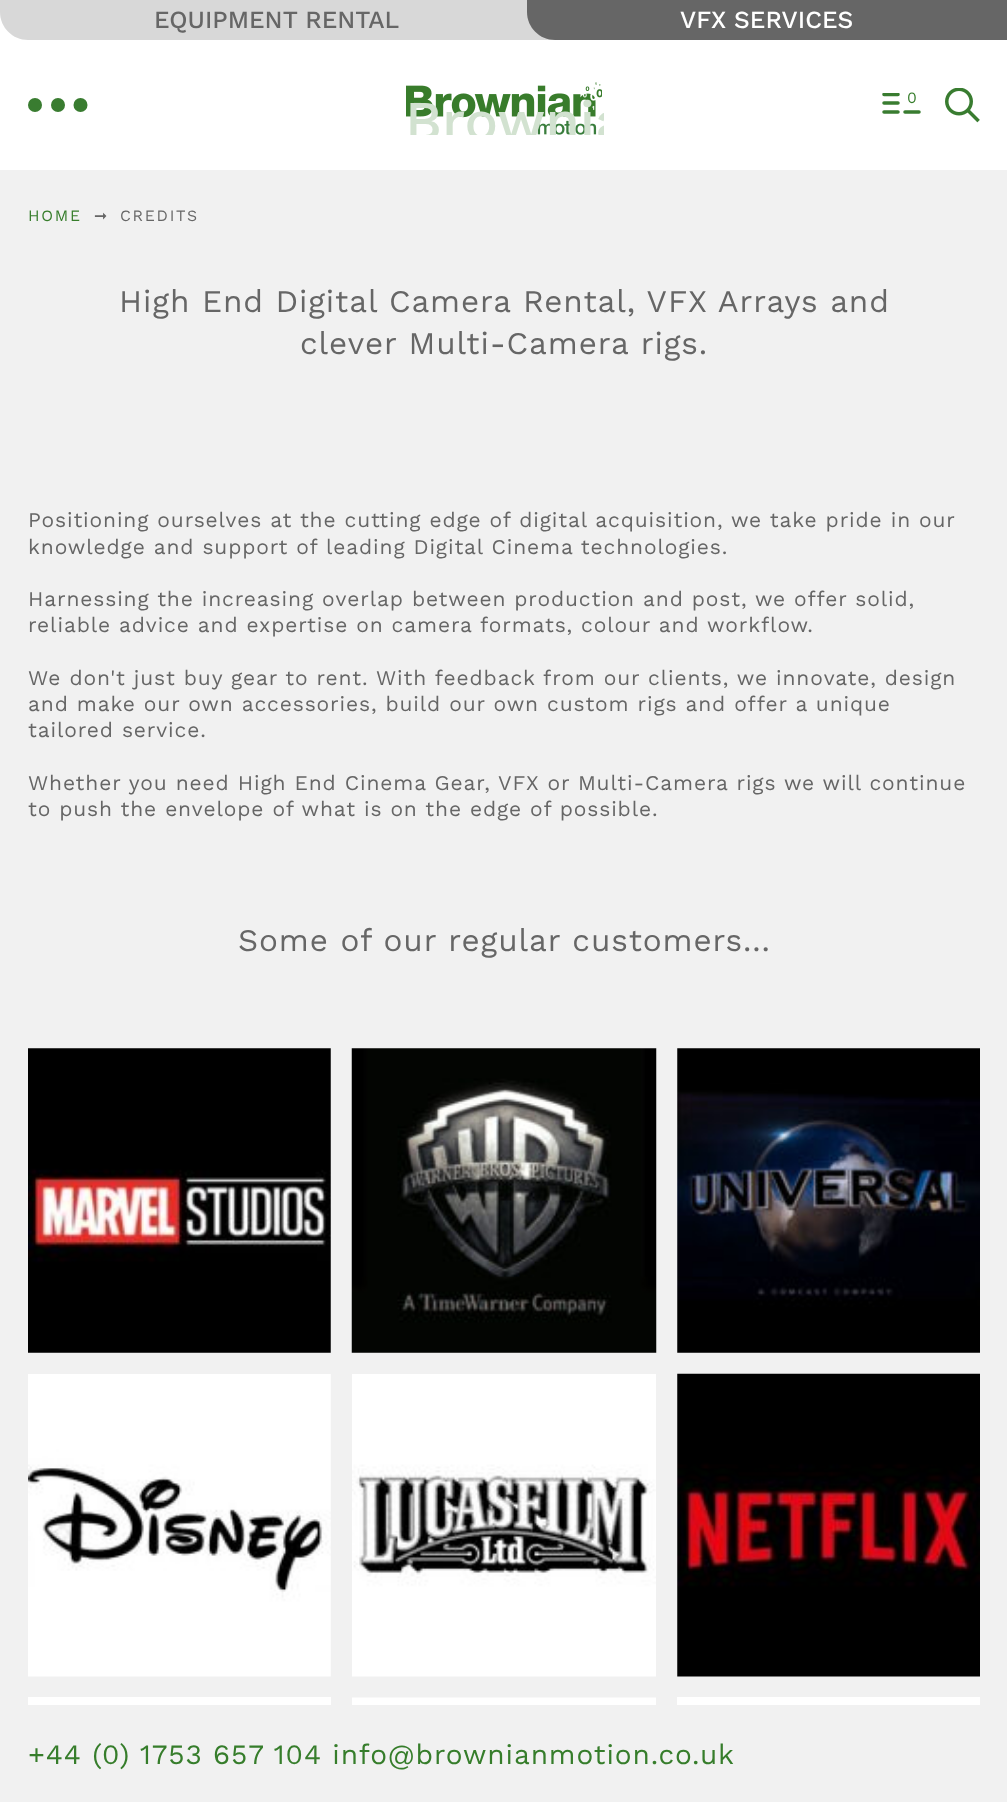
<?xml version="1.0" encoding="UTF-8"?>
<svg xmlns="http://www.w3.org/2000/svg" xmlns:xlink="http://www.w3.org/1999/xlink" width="1007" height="1802">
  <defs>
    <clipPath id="clip1"><rect x="882" y="93" width="39" height="23" /></clipPath>
    <clipPath id="clip2"><rect x="406" y="82" width="198" height="53" /></clipPath>
  </defs>
  <rect width="100%" height="100%" fill="#f1f1f1" />
  <rect y="12" width="28" height="28" fill="#ffffff" />
  <path d="M 0 0 h 555 v 40 h -527 c -15.5 0 -28 -12.5 -28 -28 z" fill="#d8d8d8" />
  <path d="M 527 0 h 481 v 40 h -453 c -15.5 0 -28 -12.5 -28 -28 z" fill="#666666" />
  <rect y="40" width="1007" height="130" fill="#ffffff" />
  <circle cx="35" cy="105" r="7" fill="#397c30" />
  <circle cx="58" cy="105" r="7" fill="#397c30" />
  <circle cx="80.5" cy="105" r="7" fill="#397c30" />
  <image x="406" y="82" width="196" height="53" xlink:href="image1.png" />
  <g clip-path="url(#clip1)">
    <path d="M 884 94.5 h 14 m -14 8.5 h 14 m -14 9 h 14 m 7 0 h 14" fill="none" stroke="#397c30" stroke-width="3.5" stroke-linecap="round" stroke-linejoin="round" />
  </g>
  <image x="945" y="88" width="35" height="35" xlink:href="image2.png" />
  <image x="28" y="1048" width="303" height="305" xlink:href="image3.png" />
  <image x="351" y="1048" width="306" height="305" xlink:href="image4.png" />
  <image x="677" y="1048" width="303" height="305" xlink:href="image5.png" />
  <image x="28" y="1374" width="303" height="303" xlink:href="image6.png" />
  <image x="352" y="1374" width="304" height="303" xlink:href="image7.png" />
  <image x="677" y="1373" width="303" height="304" xlink:href="image8.png" />
  <rect x="28" y="1697" width="303" height="8" fill="#ffffff" />
  <image x="352" y="1697" width="304" height="8" xlink:href="image9.png" />
  <rect x="677" y="1697" width="303" height="8" fill="#ffffff" />
  <text x="154" y="28" style="font-family: Work Sans; font-size: 24.5px; font-weight: 500; fill: #666666">EQUIPMENT RENTAL</text>
  <text x="680" y="28" style="font-family: Work Sans; font-size: 24.5px; font-weight: 500; fill: #ffffff">VFX SERVICES</text>
  <g clip-path="url(#clip2)">
    <text x="405" y="140" style="font-family: Work Sans; font-size: 56px; font-weight: 500; fill: #d2e2d0">Brownia</text>
  </g>
  <text x="907" y="103" style="font-family: Work Sans; font-size: 15.75px; letter-spacing: -1px; fill: #367d2b">0</text>
  <text x="28" y="221" style="font-family: Work Sans; font-size: 15.75px; letter-spacing: 1.75px; fill: #367d2b">HOME</text>
  <text x="94" y="221" style="font-family: DejaVu Sans; font-size: 15.75px; letter-spacing: 1.75px; fill: #666666">➞</text>
  <text x="120" y="221" style="font-family: Work Sans; font-size: 15.75px; letter-spacing: 1.75px; fill: #666666">CREDITS</text>
  <text x="119" y="312" style="font-family: Work Sans; font-size: 31.5px; letter-spacing: 0.88px; fill: #666666">High End Digital Camera Rental, VFX Arrays and</text>
  <text x="300" y="354" style="font-family: Work Sans; font-size: 31.5px; letter-spacing: 0.88px; fill: #666666">clever Multi-Camera rigs.</text>
  <text x="28" y="527" style="font-family: Work Sans; font-size: 21px; letter-spacing: 0.88px; fill: #666666">Positioning ourselves at the cutting edge of digital acquisition, we take pride in our</text>
  <text x="28" y="554" style="font-family: Work Sans; font-size: 21px; letter-spacing: 0.88px; fill: #666666">knowledge and support of leading Digital Cinema technologies.</text>
  <text x="28" y="606" style="font-family: Work Sans; font-size: 21px; letter-spacing: 0.88px; fill: #666666">Harnessing the increasing overlap between production and post, we offer solid,</text>
  <text x="28" y="632" style="font-family: Work Sans; font-size: 21px; letter-spacing: 0.88px; fill: #666666">reliable advice and expertise on camera formats, colour and workflow.</text>
  <text x="28" y="685" style="font-family: Work Sans; font-size: 21px; letter-spacing: 0.88px; fill: #666666">We don't just buy gear to rent. With feedback from our clients, we innovate, design</text>
  <text x="28" y="711" style="font-family: Work Sans; font-size: 21px; letter-spacing: 0.88px; fill: #666666">and make our own accessories, build our own custom rigs and offer a unique</text>
  <text x="28" y="737" style="font-family: Work Sans; font-size: 21px; letter-spacing: 0.88px; fill: #666666">tailored service.</text>
  <text x="28" y="790" style="font-family: Work Sans; font-size: 21px; letter-spacing: 0.88px; fill: #666666">Whether you need High End Cinema Gear, VFX or Multi-Camera rigs we will continue</text>
  <text x="28" y="816" style="font-family: Work Sans; font-size: 21px; letter-spacing: 0.88px; fill: #666666">to push the envelope of what is on the edge of possible.</text>
  <text x="238" y="951" style="font-family: Work Sans; font-size: 31.5px; letter-spacing: 0.88px; fill: #666666">Some of our regular customers...</text>
  <text x="28" y="1764" style="font-family: Work Sans; font-size: 28px; letter-spacing: 0.88px; fill: #367d2b">+44 (0) 1753 657 104 info@brownianmotion.co.uk</text>
</svg>
